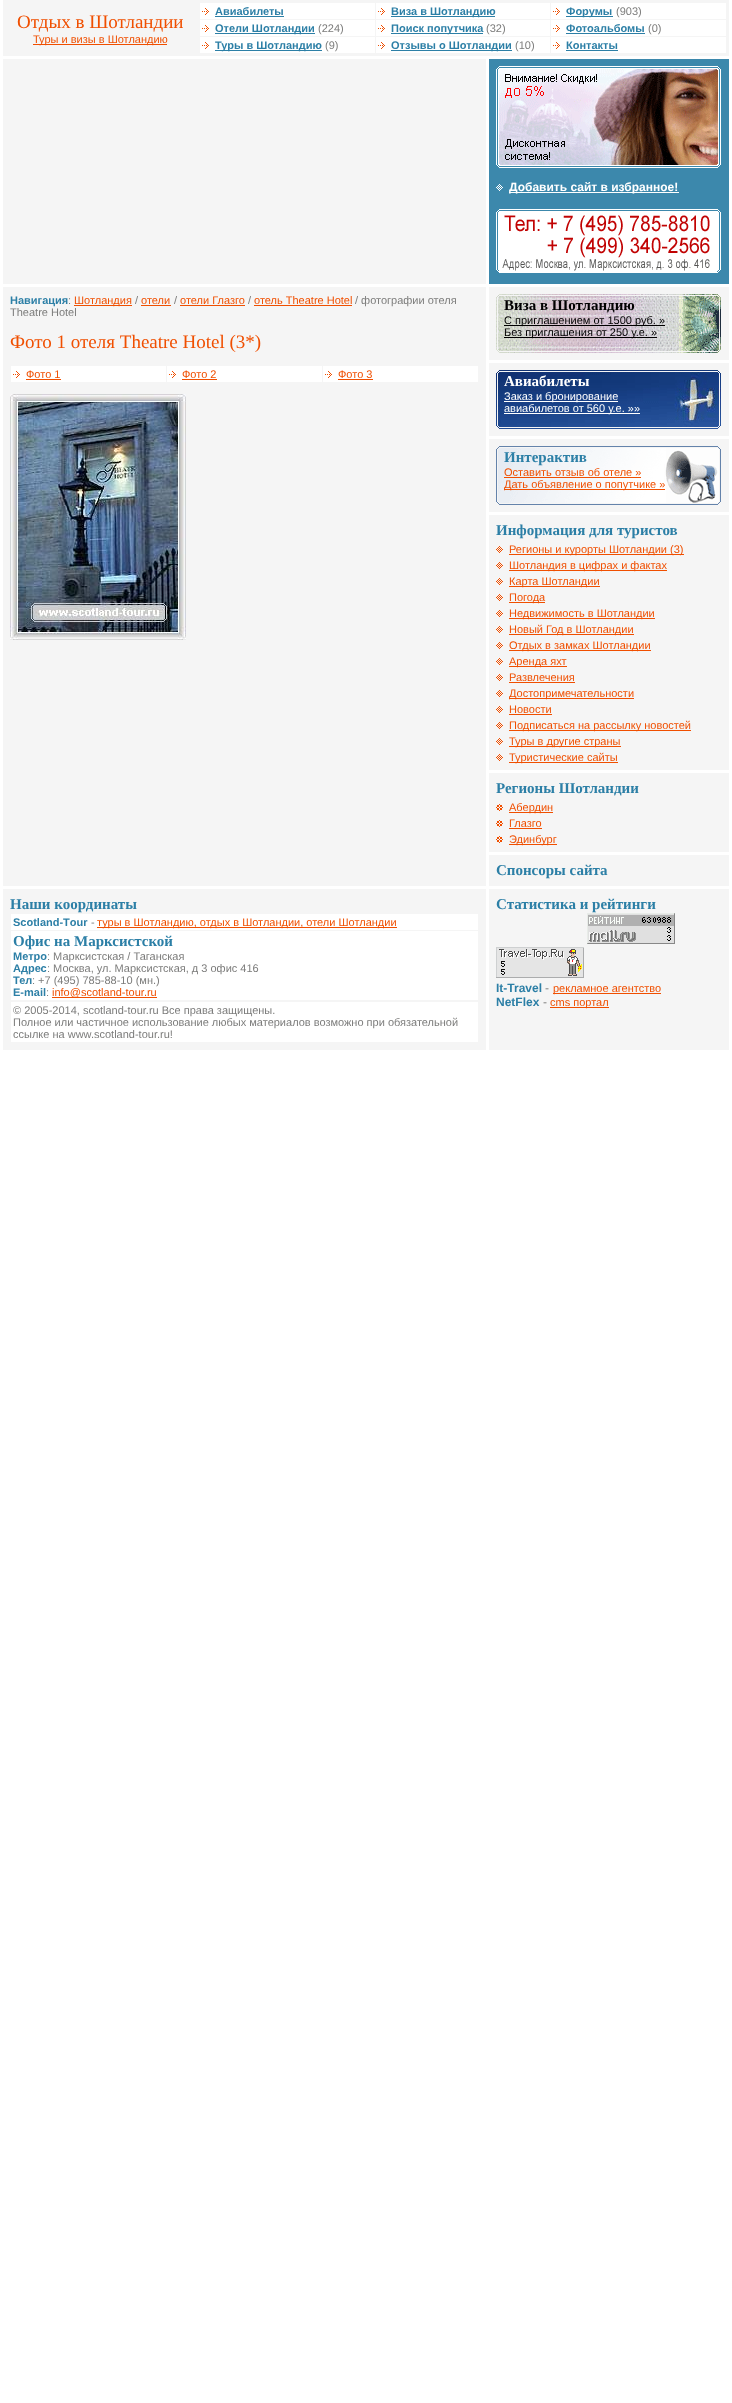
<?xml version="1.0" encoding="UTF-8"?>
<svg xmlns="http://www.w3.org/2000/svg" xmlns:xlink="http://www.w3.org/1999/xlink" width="732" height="2403">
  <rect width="100%" height="100%" fill="#ffffff" />
  <rect x="3" width="726" height="56" fill="#f5f5f5" />
  <rect x="33" y="44" width="134" height="1" fill="#f04f00" />
  <rect x="200" y="3" width="175" height="16" fill="#ffffff" />
  <image x="202" y="8" width="7" height="7" xlink:href="image1.png" />
  <rect x="215" y="16" width="69" height="1" fill="#2c7fa6" />
  <rect x="376" y="3" width="174" height="16" fill="#ffffff" />
  <image x="378" y="8" width="7" height="7" xlink:href="image1.png" />
  <rect x="391" y="16" width="104" height="1" fill="#2c7fa6" />
  <rect x="551" y="3" width="175" height="16" fill="#ffffff" />
  <image x="553" y="8" width="7" height="7" xlink:href="image1.png" />
  <rect x="566" y="16" width="47" height="1" fill="#2c7fa6" />
  <rect x="200" y="20" width="175" height="16" fill="#ffffff" />
  <image x="202" y="25" width="7" height="7" xlink:href="image1.png" />
  <rect x="215" y="33" width="100" height="1" fill="#2c7fa6" />
  <rect x="376" y="20" width="174" height="16" fill="#ffffff" />
  <image x="378" y="25" width="7" height="7" xlink:href="image1.png" />
  <rect x="391" y="33" width="92" height="1" fill="#2c7fa6" />
  <rect x="551" y="20" width="175" height="16" fill="#ffffff" />
  <image x="553" y="25" width="7" height="7" xlink:href="image1.png" />
  <rect x="566" y="33" width="79" height="1" fill="#2c7fa6" />
  <rect x="200" y="37" width="175" height="16" fill="#ffffff" />
  <image x="202" y="42" width="7" height="7" xlink:href="image1.png" />
  <rect x="215" y="50" width="107" height="1" fill="#2c7fa6" />
  <rect x="376" y="37" width="174" height="16" fill="#ffffff" />
  <image x="378" y="42" width="7" height="7" xlink:href="image1.png" />
  <rect x="391" y="50" width="121" height="1" fill="#2c7fa6" />
  <rect x="551" y="37" width="175" height="16" fill="#ffffff" />
  <image x="553" y="42" width="7" height="7" xlink:href="image1.png" />
  <rect x="566" y="50" width="52" height="1" fill="#2c7fa6" />
  <rect x="3" y="59" width="483" height="225" fill="#f5f5f5" />
  <rect x="489" y="59" width="240" height="225" fill="#3c88ac" />
  <image x="496" y="66" width="225" height="102" xlink:href="image2.png" />
  <image x="496" y="184" width="7" height="7" xlink:href="image3.png" />
  <rect x="509" y="192" width="170" height="1" fill="#ffffff" />
  <image x="496" y="209" width="225" height="64" xlink:href="image4.png" />
  <rect x="3" y="287" width="483" height="599" fill="#f5f5f5" />
  <rect x="74" y="305" width="58" height="1" fill="#f04f00" />
  <rect x="141" y="305" width="30" height="1" fill="#f04f00" />
  <rect x="180" y="305" width="65" height="1" fill="#f04f00" />
  <rect x="254" y="305" width="98" height="1" fill="#f04f00" />
  <rect x="11" y="366" width="155" height="16" fill="#ffffff" />
  <image x="13" y="371" width="7" height="7" xlink:href="image1.png" />
  <rect x="26" y="379" width="35" height="1" fill="#f04f00" />
  <rect x="167" y="366" width="155" height="16" fill="#ffffff" />
  <image x="169" y="371" width="7" height="7" xlink:href="image1.png" />
  <rect x="182" y="379" width="35" height="1" fill="#f04f00" />
  <rect x="323" y="366" width="155" height="16" fill="#ffffff" />
  <image x="325" y="371" width="7" height="7" xlink:href="image1.png" />
  <rect x="338" y="379" width="35" height="1" fill="#f04f00" />
  <image x="10" y="394" width="176" height="246" xlink:href="image5.png" />
  <rect x="489" y="287" width="240" height="599" fill="#f5f5f5" />
  <image x="496" y="294" width="225" height="59" xlink:href="image6.png" />
  <rect x="504" y="325" width="161" height="1" fill="#000000" />
  <rect x="504" y="337" width="153" height="1" fill="#000000" />
  <rect x="489" y="360" width="240" height="3" fill="#ffffff" />
  <image x="496" y="370" width="225" height="59" xlink:href="image7.png" />
  <rect x="504" y="401" width="114" height="1" fill="#ffffff" />
  <rect x="504" y="413" width="136" height="1" fill="#ffffff" />
  <rect x="489" y="436" width="240" height="3" fill="#ffffff" />
  <image x="496" y="446" width="225" height="59" xlink:href="image8.png" />
  <rect x="504" y="477" width="137" height="1" fill="#f04f00" />
  <rect x="504" y="489" width="161" height="1" fill="#f04f00" />
  <rect x="489" y="512" width="240" height="3" fill="#ffffff" />
  <image x="496" y="546" width="7" height="7" xlink:href="image9.png" />
  <rect x="509" y="554" width="175" height="1" fill="#f04f00" />
  <image x="496" y="562" width="7" height="7" xlink:href="image9.png" />
  <rect x="509" y="570" width="158" height="1" fill="#f04f00" />
  <image x="496" y="578" width="7" height="7" xlink:href="image9.png" />
  <rect x="509" y="586" width="91" height="1" fill="#f04f00" />
  <image x="496" y="594" width="7" height="7" xlink:href="image9.png" />
  <rect x="509" y="602" width="36" height="1" fill="#f04f00" />
  <image x="496" y="610" width="7" height="7" xlink:href="image9.png" />
  <rect x="509" y="618" width="146" height="1" fill="#f04f00" />
  <image x="496" y="626" width="7" height="7" xlink:href="image9.png" />
  <rect x="509" y="634" width="125" height="1" fill="#f04f00" />
  <image x="496" y="642" width="7" height="7" xlink:href="image9.png" />
  <rect x="509" y="650" width="142" height="1" fill="#f04f00" />
  <image x="496" y="658" width="7" height="7" xlink:href="image9.png" />
  <rect x="509" y="666" width="58" height="1" fill="#f04f00" />
  <image x="496" y="674" width="7" height="7" xlink:href="image9.png" />
  <rect x="509" y="682" width="66" height="1" fill="#f04f00" />
  <image x="496" y="690" width="7" height="7" xlink:href="image9.png" />
  <rect x="509" y="698" width="125" height="1" fill="#f04f00" />
  <image x="496" y="706" width="7" height="7" xlink:href="image9.png" />
  <rect x="509" y="714" width="43" height="1" fill="#f04f00" />
  <image x="496" y="722" width="7" height="7" xlink:href="image9.png" />
  <rect x="509" y="730" width="182" height="1" fill="#f04f00" />
  <image x="496" y="738" width="7" height="7" xlink:href="image9.png" />
  <rect x="509" y="746" width="112" height="1" fill="#f04f00" />
  <image x="496" y="754" width="7" height="7" xlink:href="image9.png" />
  <rect x="509" y="762" width="109" height="1" fill="#f04f00" />
  <rect x="489" y="770" width="240" height="3" fill="#ffffff" />
  <image x="496" y="804" width="7" height="7" xlink:href="image10.png" />
  <rect x="509" y="812" width="44" height="1" fill="#f04f00" />
  <image x="496" y="820" width="7" height="7" xlink:href="image10.png" />
  <rect x="509" y="828" width="33" height="1" fill="#f04f00" />
  <image x="496" y="836" width="7" height="7" xlink:href="image10.png" />
  <rect x="509" y="844" width="48" height="1" fill="#f04f00" />
  <rect x="489" y="852" width="240" height="3" fill="#ffffff" />
  <rect x="3" y="889" width="483" height="161" fill="#f5f5f5" />
  <rect x="11" y="914" width="467" height="16" fill="#ffffff" />
  <rect x="97" y="927" width="300" height="1" fill="#f04f00" />
  <rect x="11" y="931" width="467" height="69" fill="#ffffff" />
  <rect x="52" y="997" width="105" height="1" fill="#f04f00" />
  <rect x="11" y="1002" width="467" height="40" fill="#ffffff" />
  <rect x="489" y="889" width="240" height="161" fill="#f5f5f5" />
  <image x="587" y="913" width="88" height="31" xlink:href="image11.png" />
  <image x="496" y="947" width="88" height="31" xlink:href="image12.png" />
  <rect x="553" y="993" width="108" height="1" fill="#f04f00" />
  <rect x="550" y="1007" width="59" height="1" fill="#f04f00" />
  <text x="17" y="28" style="font-family: Liberation Serif; font-size: 19px; fill: #f04f00">Отдых в Шотландии</text>
  <text x="33" y="43" style="font-family: Liberation Sans; font-size: 11px; fill: #f04f00">Туры и визы в Шотландию</text>
  <text x="215" y="15" style="font-family: Liberation Sans; font-size: 11px; font-weight: bold; fill: #2c7fa6">Авиабилеты</text>
  <text x="391" y="15" style="font-family: Liberation Sans; font-size: 11px; font-weight: bold; fill: #2c7fa6">Виза в Шотландию</text>
  <text x="566" y="15" style="font-family: Liberation Sans; font-size: 11px; font-weight: bold; fill: #2c7fa6">Форумы</text>
  <text x="616" y="15" style="font-family: Liberation Sans; font-size: 11px; fill: #7c7c7b">(903)</text>
  <text x="215" y="32" style="font-family: Liberation Sans; font-size: 11px; font-weight: bold; fill: #2c7fa6">Отели Шотландии</text>
  <text x="318" y="32" style="font-family: Liberation Sans; font-size: 11px; fill: #7c7c7b">(224)</text>
  <text x="391" y="32" style="font-family: Liberation Sans; font-size: 11px; font-weight: bold; fill: #2c7fa6">Поиск попутчика</text>
  <text x="486" y="32" style="font-family: Liberation Sans; font-size: 11px; fill: #7c7c7b">(32)</text>
  <text x="566" y="32" style="font-family: Liberation Sans; font-size: 11px; font-weight: bold; fill: #2c7fa6">Фотоальбомы</text>
  <text x="648" y="32" style="font-family: Liberation Sans; font-size: 11px; fill: #7c7c7b">(0)</text>
  <text x="215" y="49" style="font-family: Liberation Sans; font-size: 11px; font-weight: bold; fill: #2c7fa6">Туры в Шотландию</text>
  <text x="325" y="49" style="font-family: Liberation Sans; font-size: 11px; fill: #7c7c7b">(9)</text>
  <text x="391" y="49" style="font-family: Liberation Sans; font-size: 11px; font-weight: bold; fill: #2c7fa6">Отзывы о Шотландии</text>
  <text x="515" y="49" style="font-family: Liberation Sans; font-size: 11px; fill: #7c7c7b">(10)</text>
  <text x="566" y="49" style="font-family: Liberation Sans; font-size: 11px; font-weight: bold; fill: #2c7fa6">Контакты</text>
  <text x="509" y="191" style="font-family: Liberation Sans; font-size: 12px; font-weight: bold; fill: #ffffff">Добавить сайт в избранное!</text>
  <text x="10" y="304" style="font-family: Liberation Sans; font-size: 11px; font-weight: bold; fill: #2c7fa6">Навигация</text>
  <text x="68" y="304" style="font-family: Liberation Sans; font-size: 11px; fill: #7c7c7b">:</text>
  <text x="74" y="304" style="font-family: Liberation Sans; font-size: 11px; fill: #f04f00">Шотландия</text>
  <text x="135" y="304" style="font-family: Liberation Sans; font-size: 11px; fill: #7c7c7b">/</text>
  <text x="141" y="304" style="font-family: Liberation Sans; font-size: 11px; fill: #f04f00">отели</text>
  <text x="174" y="304" style="font-family: Liberation Sans; font-size: 11px; fill: #7c7c7b">/</text>
  <text x="180" y="304" style="font-family: Liberation Sans; font-size: 11px; fill: #f04f00">отели Глазго</text>
  <text x="248" y="304" style="font-family: Liberation Sans; font-size: 11px; fill: #7c7c7b">/</text>
  <text x="254" y="304" style="font-family: Liberation Sans; font-size: 11px; fill: #f04f00">отель Theatre Hotel</text>
  <text x="355" y="304" style="font-family: Liberation Sans; font-size: 11px; fill: #7c7c7b">/ фотографии отеля</text>
  <text x="10" y="316" style="font-family: Liberation Sans; font-size: 11px; fill: #7c7c7b">Theatre Hotel</text>
  <text x="10" y="348" style="font-family: Liberation Serif; font-size: 19px; fill: #f04f00">Фото 1 отеля Theatre Hotel (3*)</text>
  <text x="26" y="378" style="font-family: Liberation Sans; font-size: 11px; fill: #f04f00">Фото 1</text>
  <text x="182" y="378" style="font-family: Liberation Sans; font-size: 11px; fill: #f04f00">Фото 2</text>
  <text x="338" y="378" style="font-family: Liberation Sans; font-size: 11px; fill: #f04f00">Фото 3</text>
  <text x="504" y="310" style="font-family: Liberation Serif; font-size: 15px; font-weight: bold; fill: #000000">Виза в Шотландию</text>
  <text x="504" y="324" style="font-family: Liberation Sans; font-size: 11px; fill: #000000">С приглашением от 1500 руб. »</text>
  <text x="504" y="336" style="font-family: Liberation Sans; font-size: 11px; fill: #000000">Без приглашения от 250 у.е. »</text>
  <text x="504" y="386" style="font-family: Liberation Serif; font-size: 15px; font-weight: bold; fill: #ffffff">Авиабилеты</text>
  <text x="504" y="400" style="font-family: Liberation Sans; font-size: 11px; fill: #ffffff">Заказ и бронирование</text>
  <text x="504" y="412" style="font-family: Liberation Sans; font-size: 11px; fill: #ffffff">авиабилетов от 560 у.е. »»</text>
  <text x="504" y="462" style="font-family: Liberation Serif; font-size: 15px; font-weight: bold; fill: #2c7fa6">Интерактив</text>
  <text x="504" y="476" style="font-family: Liberation Sans; font-size: 11px; fill: #f04f00">Оставить отзыв об отеле »</text>
  <text x="504" y="488" style="font-family: Liberation Sans; font-size: 11px; fill: #f04f00">Дать объявление о попутчике »</text>
  <text x="496" y="535" style="font-family: Liberation Serif; font-size: 15px; font-weight: bold; fill: #2c7fa6">Информация для туристов</text>
  <text x="509" y="553" style="font-family: Liberation Sans; font-size: 11px; fill: #f04f00">Регионы и курорты Шотландии (3)</text>
  <text x="509" y="569" style="font-family: Liberation Sans; font-size: 11px; fill: #f04f00">Шотландия в цифрах и фактах</text>
  <text x="509" y="585" style="font-family: Liberation Sans; font-size: 11px; fill: #f04f00">Карта Шотландии</text>
  <text x="509" y="601" style="font-family: Liberation Sans; font-size: 11px; fill: #f04f00">Погода</text>
  <text x="509" y="617" style="font-family: Liberation Sans; font-size: 11px; fill: #f04f00">Недвижимость в Шотландии</text>
  <text x="509" y="633" style="font-family: Liberation Sans; font-size: 11px; fill: #f04f00">Новый Год в Шотландии</text>
  <text x="509" y="649" style="font-family: Liberation Sans; font-size: 11px; fill: #f04f00">Отдых в замках Шотландии</text>
  <text x="509" y="665" style="font-family: Liberation Sans; font-size: 11px; fill: #f04f00">Аренда яхт</text>
  <text x="509" y="681" style="font-family: Liberation Sans; font-size: 11px; fill: #f04f00">Развлечения</text>
  <text x="509" y="697" style="font-family: Liberation Sans; font-size: 11px; fill: #f04f00">Достопримечательности</text>
  <text x="509" y="713" style="font-family: Liberation Sans; font-size: 11px; fill: #f04f00">Новости</text>
  <text x="509" y="729" style="font-family: Liberation Sans; font-size: 11px; fill: #f04f00">Подписаться на рассылку новостей</text>
  <text x="509" y="745" style="font-family: Liberation Sans; font-size: 11px; fill: #f04f00">Туры в другие страны</text>
  <text x="509" y="761" style="font-family: Liberation Sans; font-size: 11px; fill: #f04f00">Туристические сайты</text>
  <text x="496" y="793" style="font-family: Liberation Serif; font-size: 15px; font-weight: bold; fill: #2c7fa6">Регионы Шотландии</text>
  <text x="509" y="811" style="font-family: Liberation Sans; font-size: 11px; fill: #f04f00">Абердин</text>
  <text x="509" y="827" style="font-family: Liberation Sans; font-size: 11px; fill: #f04f00">Глазго</text>
  <text x="509" y="843" style="font-family: Liberation Sans; font-size: 11px; fill: #f04f00">Эдинбург</text>
  <text x="496" y="875" style="font-family: Liberation Serif; font-size: 15px; font-weight: bold; fill: #2c7fa6">Спонсоры сайта</text>
  <text x="10" y="909" style="font-family: Liberation Serif; font-size: 15px; font-weight: bold; fill: #2c7fa6">Наши координаты</text>
  <text x="13" y="926" style="font-family: Liberation Sans; font-size: 11px; font-weight: bold; fill: #2c7fa6">Scotland-Тour</text>
  <text x="91" y="926" style="font-family: Liberation Sans; font-size: 11px; fill: #7c7c7b">-</text>
  <text x="97" y="926" style="font-family: Liberation Sans; font-size: 11px; fill: #f04f00">туры в Шотландию, отдых в Шотландии, отели Шотландии</text>
  <text x="13" y="946" style="font-family: Liberation Serif; font-size: 15px; font-weight: bold; fill: #2c7fa6">Офис на Марксистской</text>
  <text x="13" y="960" style="font-family: Liberation Sans; font-size: 11px; font-weight: bold; fill: #2c7fa6">Метро</text>
  <text x="47" y="960" style="font-family: Liberation Sans; font-size: 11px; fill: #7c7c7b">: Марксистская / Таганская</text>
  <text x="13" y="972" style="font-family: Liberation Sans; font-size: 11px; font-weight: bold; fill: #2c7fa6">Адрес</text>
  <text x="47" y="972" style="font-family: Liberation Sans; font-size: 11px; fill: #7c7c7b">: Москва, ул. Марксистская, д 3 офис 416</text>
  <text x="13" y="984" style="font-family: Liberation Sans; font-size: 11px; font-weight: bold; fill: #2c7fa6">Тел</text>
  <text x="32" y="984" style="font-family: Liberation Sans; font-size: 11px; fill: #7c7c7b">: +7 (495) 785-88-10 (мн.)</text>
  <text x="13" y="996" style="font-family: Liberation Sans; font-size: 11px; font-weight: bold; fill: #2c7fa6">E-mail</text>
  <text x="46" y="996" style="font-family: Liberation Sans; font-size: 11px; fill: #7c7c7b">:</text>
  <text x="52" y="996" style="font-family: Liberation Sans; font-size: 11px; fill: #f04f00">info@scotland-tour.ru</text>
  <text x="13" y="1014" style="font-family: Liberation Sans; font-size: 11px; fill: #7c7c7b">© 2005-2014, scotland-tour.ru Все права защищены.</text>
  <text x="13" y="1026" style="font-family: Liberation Sans; font-size: 11px; fill: #7c7c7b">Полное или частичное использование любых материалов возможно при обязательной</text>
  <text x="13" y="1038" style="font-family: Liberation Sans; font-size: 11px; fill: #7c7c7b">ссылке на www.scotland-tour.ru!</text>
  <text x="496" y="909" style="font-family: Liberation Serif; font-size: 15px; font-weight: bold; fill: #2c7fa6">Статистика и рейтинги</text>
  <text x="496" y="992" style="font-family: Liberation Sans; font-size: 12px; font-weight: bold; fill: #2c7fa6">It-Travel</text>
  <text x="545" y="992" style="font-family: Liberation Sans; font-size: 12px; fill: #7c7c7b">-</text>
  <text x="553" y="992" style="font-family: Liberation Sans; font-size: 11px; fill: #f04f00">рекламное агентство</text>
  <text x="496" y="1006" style="font-family: Liberation Sans; font-size: 12px; font-weight: bold; fill: #2c7fa6">NetFlex</text>
  <text x="543" y="1006" style="font-family: Liberation Sans; font-size: 12px; fill: #7c7c7b">-</text>
  <text x="550" y="1006" style="font-family: Liberation Sans; font-size: 11px; fill: #f04f00">cms портал</text>
</svg>
